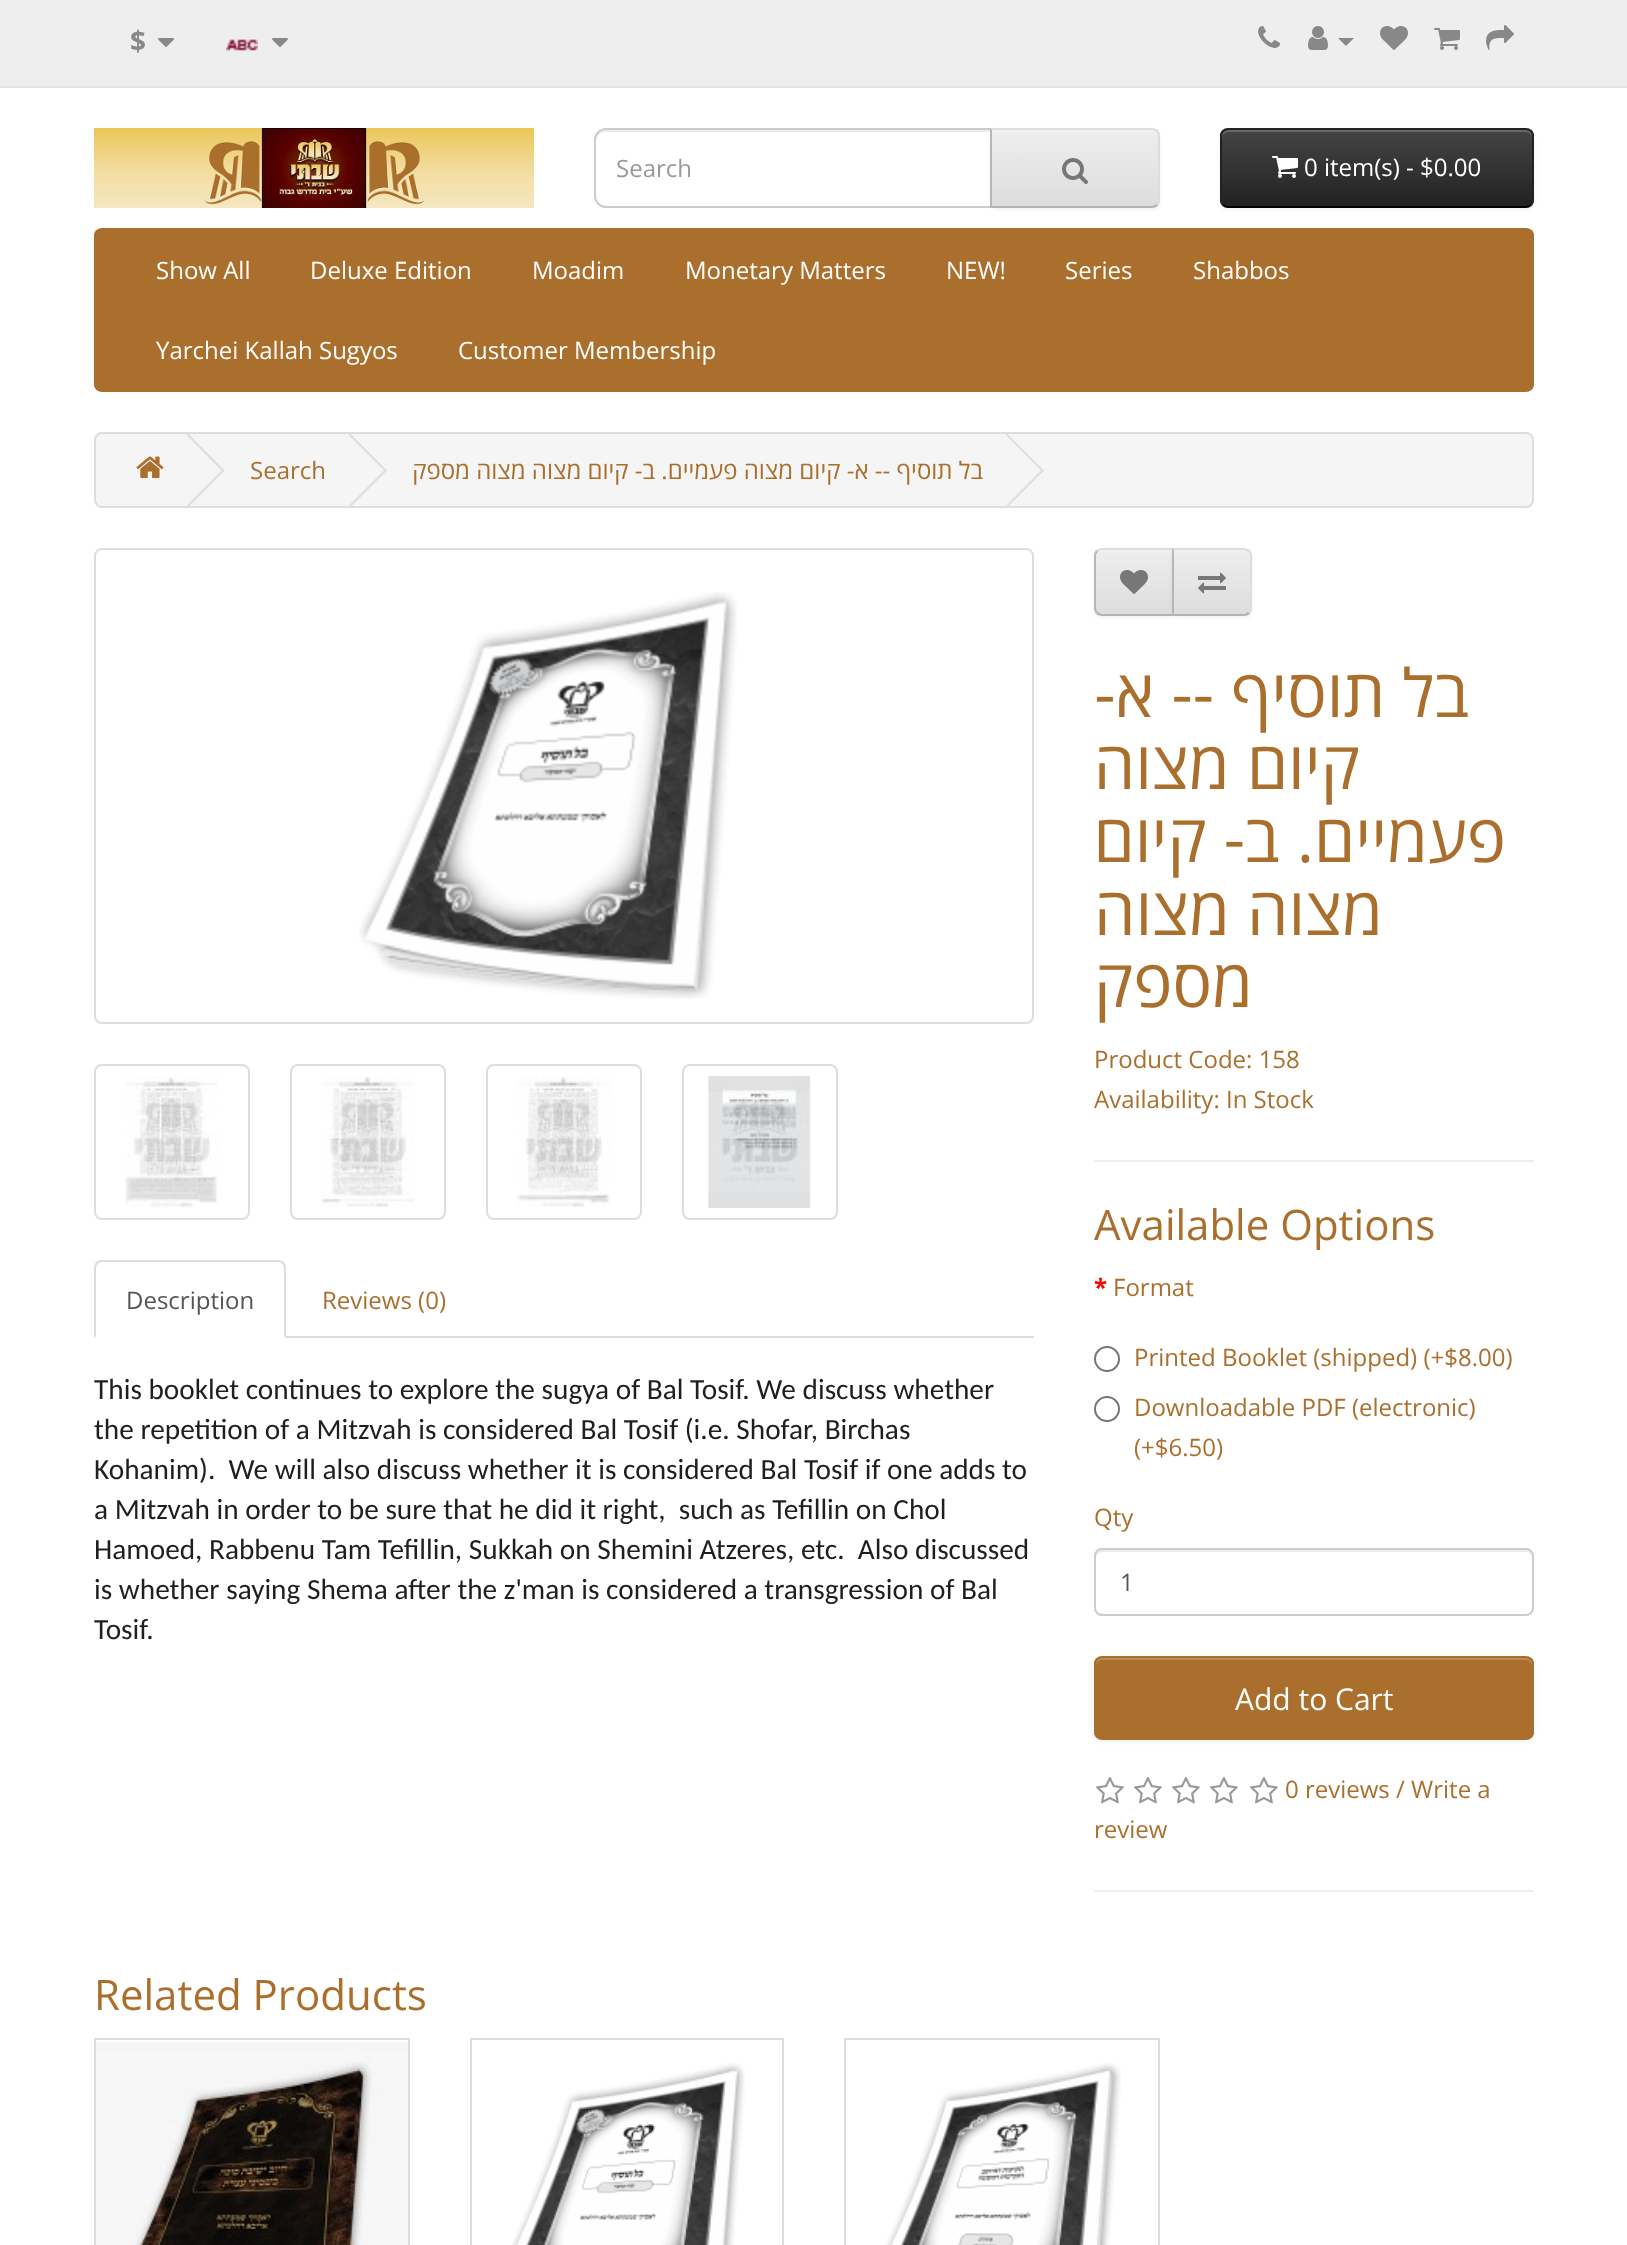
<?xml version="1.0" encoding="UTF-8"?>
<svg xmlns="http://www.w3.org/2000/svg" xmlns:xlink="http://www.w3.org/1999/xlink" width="1627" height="2245">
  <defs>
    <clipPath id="clip1"><path d="M 990 128 h 162 c 4.5 0 8 3.5 8 8 v 64 c 0 4.5 -3.5 8 -8 8 h -162 z" /></clipPath>
    <linearGradient id="g1" gradientUnits="userSpaceOnUse" x1="1075" y1="130" x2="1075" y2="206"><stop offset="0" stop-color="#eeeeee" /><stop offset="1" stop-color="#dddddd" /></linearGradient>
    <clipPath id="clip2"><rect x="1220" y="128" width="314" height="80" rx="8" /></clipPath>
    <linearGradient id="g2" gradientUnits="userSpaceOnUse" x1="1377" y1="130" x2="1377" y2="206"><stop offset="0" stop-color="#444444" /><stop offset="1" stop-color="#222222" /></linearGradient>
    <clipPath id="clip3"><rect x="94" y="228" width="1440" height="164" rx="8" /></clipPath>
    <clipPath id="clip4"><path d="M 1102 548 h 72 v 68 h -72 c -4.5 0 -8 -3.5 -8 -8 v -52 c 0 -4.5 3.5 -8 8 -8 z" /></clipPath>
    <linearGradient id="g3" gradientUnits="userSpaceOnUse" x1="1134" y1="550" x2="1134" y2="614"><stop offset="0" stop-color="#eeeeee" /><stop offset="1" stop-color="#dddddd" /></linearGradient>
    <clipPath id="clip5"><path d="M 1172 548 h 72 c 4.5 0 8 3.5 8 8 v 52 c 0 4.5 -3.5 8 -8 8 h -72 z" /></clipPath>
    <linearGradient id="g4" gradientUnits="userSpaceOnUse" x1="1212" y1="550" x2="1212" y2="614"><stop offset="0" stop-color="#eeeeee" /><stop offset="1" stop-color="#dddddd" /></linearGradient>
    <clipPath id="clip6"><rect x="1094" y="1656" width="440" height="84" rx="8" /></clipPath>
  </defs>
  <rect width="100%" height="100%" fill="#ffffff" />
  <rect width="1627" height="86" fill="#eeeeee" />
  <rect y="86" width="1627" height="2" fill="#e2e2e2" />
  <image x="158" y="38" width="16" height="9" xlink:href="image1.png" />
  <image x="226" y="39" width="32" height="12" xlink:href="image2.png" />
  <image x="272" y="38" width="16" height="9" xlink:href="image1.png" />
  <image x="1258" y="26" width="22" height="22" xlink:href="image3.png" />
  <image x="1308" y="26" width="20" height="24" xlink:href="image4.png" />
  <path d="M 1338 38 h 16 l -8 8 z" fill="#888888" />
  <image x="1380" y="26" width="28" height="24" xlink:href="image5.png" />
  <image x="1434" y="28" width="26" height="22" xlink:href="image6.png" />
  <image x="1486" y="25" width="28" height="25" xlink:href="image7.png" />
  <image x="94" y="128" width="440" height="80" xlink:href="image8.png" />
  <path d="M 606 132 h 384 v -2 h -386 c -6 1 -8 7 -8 12 c 0 -6 4 -10 10 -10 z" fill="#ececec" />
  <path d="M 606 129 h 385 v 78 h -385 c -6 0 -11 -5 -11 -11 v -56 c 0 -6 5 -11 11 -11 z" fill="none" stroke="#cccccc" stroke-width="2" />
  <rect x="990" y="130" width="170" height="80" rx="8" fill="#000000" fill-opacity="0.05" filter="blur(2px)" />
  <g clip-path="url(#clip1)">
    <rect x="992" y="130" width="168" height="76" fill="url(#g1)" />
  </g>
  <path d="M 992 132 h 160 c 3 0 6 3 6 6 v -2 c 0 -3 -3 -6 -6 -6 h -160 z" fill="#f1f1f1" />
  <path d="M 990 128 l 2 2 h 161 l 3 2 l 2 -2 c -2 -1 -4 -2 -6 -2 z" fill="#dddddd" />
  <path d="M 1160 200 v -64 c 0 -2 -1 -4 -2 -6 l -2 2 c 1 1 2 2 2 4 v 64 c 0 2 -1 3 -2 4 l 2 2 c 1 -2 2 -4 2 -6 z" fill="#dddddd" />
  <path d="M 1152 208 c 2 0 4 -1 6 -2 l -2 -2 l -3 2 h -161 l -2 2 z" fill="#b3b3b3" />
  <path d="M 990 128 v 80 l 2 -2 v -76 z" fill="#b7b7b7" />
  <image x="1062" y="158" width="26" height="26" xlink:href="image9.png" />
  <rect x="1220" y="130" width="314" height="80" rx="8" fill="#000000" fill-opacity="0.05" filter="blur(2px)" />
  <g clip-path="url(#clip2)">
    <rect x="1220" y="130" width="314" height="76" fill="url(#g2)" />
  </g>
  <path d="M 1228 132 h 298 c 3 0 6 3 6 6 v -2 c 0 -3 -3 -6 -6 -6 h -298 c -3 0 -6 3 -6 6 v 2 c 0 -3 3 -6 6 -6 z" fill="#696969" />
  <path d="M 1531 205 c -1.5 1.5 -3 2 -5 2 h -298 c -2 0 -3.5 -0.5 -5 -2" fill="none" stroke="#000000" stroke-width="2" />
  <path d="M 1223 205 c -1.5 -1.5 -2 -3 -2 -5 v -64 c 0 -2 0.5 -3.5 2 -5 c 1.5 -1.5 3 -2 5 -2 h 298 c 2 0 3.5 0.5 5 2 c 1.5 1.5 2 3 2 5 v 64 c 0 2 -0.5 3.5 -2 5" fill="none" stroke="#222222" stroke-width="2" />
  <image x="1272" y="156" width="26" height="22" xlink:href="image10.png" />
  <rect x="94" y="228" width="1440" height="164" rx="8" fill="#aa6f2d" />
  <g clip-path="url(#clip3)">
    <rect x="94" y="230" width="1440" height="160" fill="#aa6f2d" />
  </g>
  <rect x="95" y="433" width="1438" height="74" rx="7" fill="#f5f5f5" stroke="#dddddd" stroke-width="2" />
  <image x="136" y="456" width="28" height="22" xlink:href="image11.png" />
  <path d="M 186.5 435 l 1.5 -1.5 l 36.5 37 l -1.5 1.5 z" fill="#dddddd" />
  <path d="M 186.5 506 l 36.5 -37 l 1.5 1.5 l -36.5 37 z" fill="#dddddd" />
  <path d="M 348.5 435 l 1.5 -1.5 l 37 37 l -1.5 1.5 z" fill="#dddddd" />
  <path d="M 348.5 506 l 37 -37 l 1.5 1.5 l -37 37 z" fill="#dddddd" />
  <path d="M 1006 435 l 1 -1.5 l 37 37 l -1.5 1.5 z" fill="#dddddd" />
  <path d="M 1006 506 l 36.5 -37 l 1.5 1.5 l -37 37 z" fill="#dddddd" />
  <rect x="95" y="549" width="938" height="474" rx="7" fill="none" stroke="#dddddd" stroke-width="2" />
  <image x="359" y="592" width="378" height="407" xlink:href="image12.png" />
  <rect x="95" y="1065" width="154" height="154" rx="7" fill="none" stroke="#dddddd" stroke-width="2" />
  <image x="125" y="1076" width="93" height="132" xlink:href="image13.png" />
  <rect x="291" y="1065" width="154" height="154" rx="7" fill="none" stroke="#dddddd" stroke-width="2" />
  <image x="321" y="1076" width="94" height="132" xlink:href="image14.png" />
  <rect x="487" y="1065" width="154" height="154" rx="7" fill="none" stroke="#dddddd" stroke-width="2" />
  <image x="517" y="1076" width="94" height="131" xlink:href="image15.png" />
  <rect x="683" y="1065" width="154" height="154" rx="7" fill="none" stroke="#dddddd" stroke-width="2" />
  <image x="708" y="1076" width="103" height="132" xlink:href="image16.png" />
  <rect x="286" y="1336" width="748" height="2" fill="#dddddd" />
  <path d="M 102 1260 c -2 0 -4 1 -6 2 l 2 2 c 1 -1 2 -2 4 -2 h 176 c 2 0 3 1 4 2 l 2 -2 c -2 -1 -4 -2 -6 -2 z" fill="#dddddd" />
  <path d="M 286 1338 v -70 c 0 -2 -1 -4 -2 -6 l -2 2 c 1 1 2 2 2 4 v 68 z" fill="#dddddd" />
  <path d="M 94 1338 l 2 -2 v -68 c 0 -2 1 -3 2 -4 l -2 -2 c -1 2 -2 4 -2 6 z" fill="#dddddd" />
  <rect x="1094" y="550" width="80" height="68" rx="8" fill="#000000" fill-opacity="0.05" filter="blur(2px)" />
  <g clip-path="url(#clip4)">
    <rect x="1094" y="550" width="78" height="64" fill="url(#g3)" />
  </g>
  <path d="M 1102 552 h 70 v -2 h -70 c -3 0 -6 3 -6 6 v 2 c 0 -3 3 -6 6 -6 z" fill="#f1f1f1" />
  <path d="M 1102 548 c -2 0 -4 1 -6 2 l 2 2 l 3 -2 h 71 l 2 -2 z" fill="#dddddd" />
  <path d="M 1174 616 l -2 -2 h -71 l -3 -2 l -2 2 c 2 1 4 2 6 2 z" fill="#b3b3b3" />
  <path d="M 1094 556 v 52 c 0 2 1 4 2 6 l 2 -2 c -1 -1 -2 -2 -2 -4 v -52 c 0 -2 1 -3 2 -4 l -2 -2 c -1 2 -2 4 -2 6 z" fill="#b7b7b7" />
  <image x="1120" y="570" width="28" height="24" xlink:href="image17.png" />
  <rect x="1172" y="550" width="80" height="68" rx="8" fill="#000000" fill-opacity="0.05" filter="blur(2px)" />
  <g clip-path="url(#clip5)">
    <rect x="1174" y="550" width="78" height="64" fill="url(#g4)" />
  </g>
  <path d="M 1174 552 h 70 c 3 0 6 3 6 6 v -2 c 0 -3 -3 -6 -6 -6 h -70 z" fill="#f1f1f1" />
  <path d="M 1172 548 l 2 2 h 71 l 3 2 l 2 -2 c -2 -1 -4 -2 -6 -2 z" fill="#dddddd" />
  <path d="M 1252 608 v -52 c 0 -2 -1 -4 -2 -6 l -2 2 c 1 1 2 2 2 4 v 52 c 0 2 -1 3 -2 4 l 2 2 c 1 -2 2 -4 2 -6 z" fill="#dddddd" />
  <path d="M 1244 616 c 2 0 4 -1 6 -2 l -2 -2 l -3 2 h -71 l -2 2 z" fill="#b3b3b3" />
  <path d="M 1172 548 v 68 l 2 -2 v -64 z" fill="#b7b7b7" />
  <image x="1198" y="572" width="28" height="22" xlink:href="image18.png" />
  <rect x="1094" y="1160" width="440" height="2" fill="#eeeeee" />
  <circle cx="1107" cy="1359" r="12" fill="none" stroke="#767676" stroke-width="2" />
  <circle cx="1107" cy="1409" r="12" fill="none" stroke="#767676" stroke-width="2" />
  <path d="M 1102 1552 h 424 c 3 0 6 3 6 6 v -2 c 0 -3 -3 -6 -6 -6 h -424 c -3 0 -6 3 -6 6 v 2 c 0 -3 3 -6 6 -6 z" fill="#ececec" />
  <rect x="1095" y="1549" width="438" height="66" rx="7" fill="none" stroke="#cccccc" stroke-width="2" />
  <rect x="1094" y="1658" width="440" height="84" rx="8" fill="#000000" fill-opacity="0.05" filter="blur(2px)" />
  <g clip-path="url(#clip6)">
    <rect x="1094" y="1658" width="440" height="80" fill="#aa6f2d" />
  </g>
  <path d="M 1102 1660 h 424 c 3 0 6 3 6 6 v -2 c 0 -3 -3 -6 -6 -6 h -424 c -3 0 -6 3 -6 6 v 2 c 0 -3 3 -6 6 -6 z" fill="#bb8c57" />
  <rect x="1095" y="1657" width="438" height="82" rx="7" fill="none" stroke="#aa6f2d" stroke-width="2" />
  <image x="1096" y="1776" width="28" height="28" xlink:href="image19.png" />
  <image x="1134" y="1776" width="28" height="28" xlink:href="image19.png" />
  <image x="1172" y="1776" width="28" height="28" xlink:href="image19.png" />
  <image x="1210" y="1776" width="28" height="28" xlink:href="image19.png" />
  <image x="1250" y="1776" width="28" height="28" xlink:href="image19.png" />
  <rect x="1094" y="1890" width="440" height="2" fill="#eeeeee" />
  <rect x="95" y="2039" width="314" height="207" fill="none" stroke="#dddddd" stroke-width="2" />
  <image x="96" y="2042" width="312" height="203" xlink:href="image20.png" />
  <rect x="471" y="2039" width="312" height="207" fill="none" stroke="#dddddd" stroke-width="2" />
  <image x="512" y="2063" width="233" height="182" xlink:href="image21.png" />
  <rect x="845" y="2039" width="314" height="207" fill="none" stroke="#dddddd" stroke-width="2" />
  <image x="885" y="2063" width="236" height="182" xlink:href="image22.png" />
  <text x="130" y="51" style="font-family: Open Sans; font-size: 28px; font-weight: bold; fill: #888888">$</text>
  <text x="616" y="177" style="font-family: Open Sans; font-size: 24px; fill: #999999">Search</text>
  <text x="1304" y="176" style="font-family: Open Sans; font-size: 24px; fill: #ffffff">0 item(s) - $0.00</text>
  <text x="156" y="279" style="font-family: Open Sans; font-size: 24px; fill: #ffffff">Show All</text>
  <text x="310" y="279" style="font-family: Open Sans; font-size: 24px; fill: #ffffff">Deluxe Edition</text>
  <text x="532" y="279" style="font-family: Open Sans; font-size: 24px; fill: #ffffff">Moadim</text>
  <text x="685" y="279" style="font-family: Open Sans; font-size: 24px; fill: #ffffff">Monetary Matters</text>
  <text x="946" y="279" style="font-family: Open Sans; font-size: 24px; fill: #ffffff">NEW!</text>
  <text x="1065" y="279" style="font-family: Open Sans; font-size: 24px; fill: #ffffff">Series</text>
  <text x="1193" y="279" style="font-family: Open Sans; font-size: 24px; fill: #ffffff">Shabbos</text>
  <text x="156" y="359" style="font-family: Open Sans; font-size: 24px; fill: #ffffff">Yarchei Kallah Sugyos</text>
  <text x="458" y="359" style="font-family: Open Sans; font-size: 24px; fill: #ffffff">Customer Membership</text>
  <text x="250" y="479" style="font-family: Open Sans; font-size: 24px; fill: #aa6f2d">Search</text>
  <text x="983" y="479" style="font-family: Open Sans; font-size: 24px; direction: rtl; fill: #aa6f2d">בל תוסיף -- א- קיום מצוה פעמיים. ב- קיום מצוה מצוה מספק</text>
  <text x="126" y="1309" style="font-family: Open Sans; font-size: 24px; fill: #555555">Description</text>
  <text x="322" y="1309" style="font-family: Open Sans; font-size: 24px; fill: #aa6f2d">Reviews (0)</text>
  <text x="94" y="1399" style="font-family: Carlito; font-size: 29.3px; fill: #201f1e">This booklet continues to explore the sugya of Bal Tosif. We discuss whether</text>
  <text x="94" y="1439" style="font-family: Carlito; font-size: 29.3px; fill: #201f1e">the repetition of a Mitzvah is considered Bal Tosif (i.e. Shofar, Birchas</text>
  <text x="94" y="1479" style="font-family: Carlito; font-size: 29.3px; fill: #201f1e" xml:space="preserve">Kohanim).  We will also discuss whether it is considered Bal Tosif if one adds to</text>
  <text x="94" y="1519" style="font-family: Carlito; font-size: 29.3px; fill: #201f1e" xml:space="preserve">a Mitzvah in order to be sure that he did it right,  such as Tefillin on Chol</text>
  <text x="94" y="1559" style="font-family: Carlito; font-size: 29.3px; fill: #201f1e" xml:space="preserve">Hamoed, Rabbenu Tam Tefillin, Sukkah on Shemini Atzeres, etc.  Also discussed</text>
  <text x="94" y="1599" style="font-family: Carlito; font-size: 29.3px; fill: #201f1e">is whether saying Shema after the z'man is considered a transgression of Bal</text>
  <text x="94" y="1639" style="font-family: Carlito; font-size: 29.3px; fill: #201f1e">Tosif.</text>
  <text x="1469" y="717" style="font-family: Open Sans; font-size: 66px; direction: rtl; fill: #aa6f2d">בל תוסיף -- א-</text>
  <text x="1360" y="789" style="font-family: Open Sans; font-size: 66px; direction: rtl; fill: #aa6f2d">קיום מצוה</text>
  <text x="1506" y="862" style="font-family: Open Sans; font-size: 66px; direction: rtl; fill: #aa6f2d">פעמיים. ב- קיום</text>
  <text x="1383" y="935" style="font-family: Open Sans; font-size: 66px; direction: rtl; fill: #aa6f2d">מצוה מצוה</text>
  <text x="1253" y="1007" style="font-family: Open Sans; font-size: 66px; direction: rtl; fill: #aa6f2d">מספק</text>
  <text x="1094" y="1068" style="font-family: Open Sans; font-size: 24px; fill: #aa6f2d">Product Code: 158</text>
  <text x="1094" y="1108" style="font-family: Open Sans; font-size: 24px; fill: #aa6f2d">Availability: In Stock</text>
  <text x="1094" y="1240" style="font-family: Open Sans; font-size: 42px; fill: #aa6f2d">Available Options</text>
  <text x="1094" y="1296" style="font-family: Open Sans; font-size: 24px; font-weight: bold; fill: #ff0000">*</text>
  <text x="1113" y="1296" style="font-family: Open Sans; font-size: 24px; fill: #aa6f2d">Format</text>
  <text x="1134" y="1366" style="font-family: Open Sans; font-size: 24px; fill: #aa6f2d">Printed Booklet (shipped) (+$8.00)</text>
  <text x="1134" y="1416" style="font-family: Open Sans; font-size: 24px; fill: #aa6f2d">Downloadable PDF (electronic)</text>
  <text x="1134" y="1456" style="font-family: Open Sans; font-size: 24px; fill: #aa6f2d">(+$6.50)</text>
  <text x="1094" y="1526" style="font-family: Open Sans; font-size: 24px; fill: #aa6f2d">Qty</text>
  <text x="1120" y="1591" style="font-family: Open Sans; font-size: 24px; fill: #555555">1</text>
  <text x="1235" y="1710" style="font-family: Open Sans; font-size: 30px; fill: #ffffff">Add to Cart</text>
  <text x="1285" y="1798" style="font-family: Open Sans; font-size: 24px; fill: #aa6f2d">0 reviews / Write a</text>
  <text x="1094" y="1838" style="font-family: Open Sans; font-size: 24px; fill: #aa6f2d">review</text>
  <text x="94" y="2010" style="font-family: Open Sans; font-size: 42px; fill: #aa6f2d">Related Products</text>
</svg>
